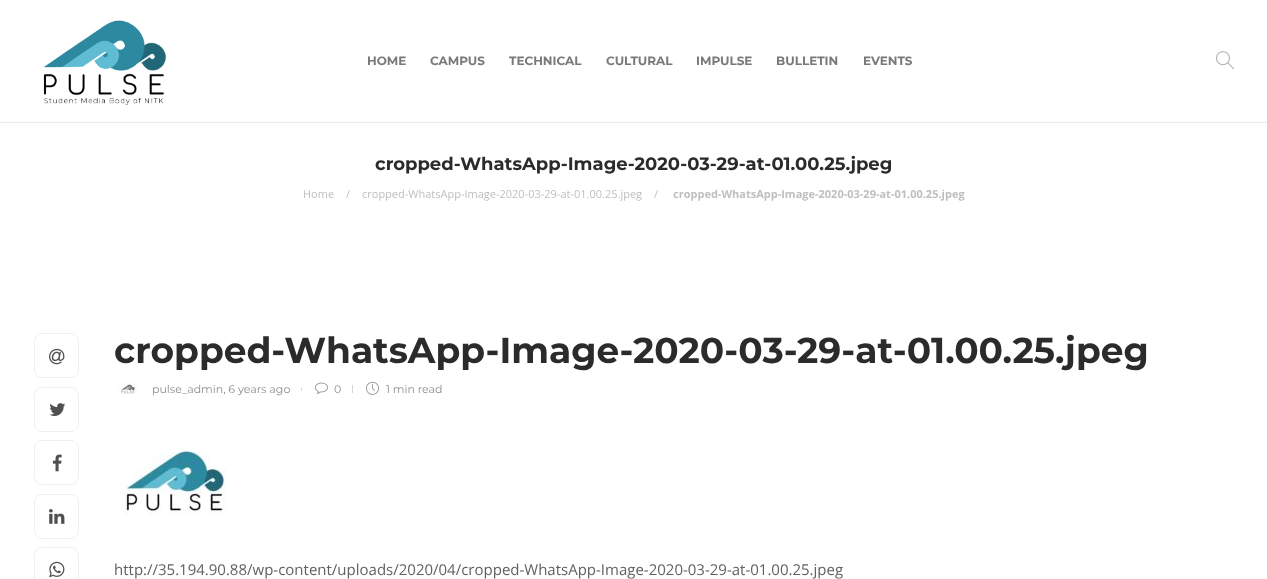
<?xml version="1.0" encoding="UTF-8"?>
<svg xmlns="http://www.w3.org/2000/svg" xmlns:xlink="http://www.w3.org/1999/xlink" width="1267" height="579">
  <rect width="100%" height="100%" fill="#ffffff" />
  <rect y="122" width="1267" height="1" fill="#ebebeb" />
  <image x="43" y="20" width="123" height="85" xlink:href="image1.png" />
  <image x="1216" y="51" width="18" height="18" xlink:href="image2.png" />
  <rect x="34.5" y="333.5" width="44" height="44" rx="7.5" fill="none" stroke="#f0f0f0" />
  <image x="49" y="348" width="16" height="17" xlink:href="image3.png" />
  <rect x="34.5" y="387.5" width="44" height="44" rx="7.5" fill="none" stroke="#f0f0f0" />
  <image x="49" y="403" width="17" height="13" xlink:href="image4.png" />
  <rect x="34.5" y="440.5" width="44" height="44" rx="7.5" fill="none" stroke="#f0f0f0" />
  <image x="52" y="454" width="10" height="18" xlink:href="image5.png" />
  <rect x="34.5" y="494.5" width="44" height="44" rx="7.5" fill="none" stroke="#f0f0f0" />
  <image x="49" y="509" width="16" height="15" xlink:href="image6.png" />
  <rect x="34.5" y="547.5" width="44" height="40" rx="7.5" fill="none" stroke="#f0f0f0" />
  <image x="49" y="561" width="16" height="17" xlink:href="image7.png" />
  <image x="116" y="380" width="21" height="14" xlink:href="image8.png" />
  <rect x="301" y="388" width="1" height="3" fill="#d6d6d6" />
  <image x="315" y="382" width="13" height="12" xlink:href="image9.png" />
  <rect x="352" y="385" width="1" height="8" fill="#d6d6d6" />
  <image x="366" y="381" width="13" height="14" xlink:href="image10.png" />
  <image x="122" y="448" width="104" height="68" xlink:href="image11.png" />
  <text x="367" y="65" style="font-family: Montserrat; font-size: 12px; font-weight: bold; fill: #797979">HOME</text>
  <text x="430" y="65" style="font-family: Montserrat; font-size: 12px; font-weight: bold; fill: #797979">CAMPUS</text>
  <text x="509" y="65" style="font-family: Montserrat; font-size: 12px; font-weight: bold; fill: #797979">TECHNICAL</text>
  <text x="606" y="65" style="font-family: Montserrat; font-size: 12px; font-weight: bold; fill: #797979">CULTURAL</text>
  <text x="696" y="65" style="font-family: Montserrat; font-size: 12px; font-weight: bold; fill: #797979">IMPULSE</text>
  <text x="776" y="65" style="font-family: Montserrat; font-size: 12px; font-weight: bold; fill: #797979">BULLETIN</text>
  <text x="863" y="65" style="font-family: Montserrat; font-size: 12px; font-weight: bold; fill: #797979">EVENTS</text>
  <text x="375" y="170" style="font-family: Montserrat; font-size: 18px; font-weight: bold; fill: #2b2b2b">cropped-WhatsApp-Image-2020-03-29-at-01.00.25.jpeg</text>
  <text x="303" y="198" style="font-family: Open Sans; font-size: 11px; fill: #bfbfbf">Home</text>
  <text x="346" y="198" style="font-family: Open Sans; font-size: 11px; fill: #bfbfbf">/</text>
  <text x="362" y="198" style="font-family: Open Sans; font-size: 11px; fill: #bfbfbf">cropped-WhatsApp-Image-2020-03-29-at-01.00.25.jpeg</text>
  <text x="654" y="198" style="font-family: Open Sans; font-size: 11px; fill: #bfbfbf">/</text>
  <text x="673" y="198" style="font-family: Open Sans; font-size: 11px; font-weight: bold; fill: #bfbfbf">cropped-WhatsApp-Image-2020-03-29-at-01.00.25.jpeg</text>
  <text x="114" y="363" style="font-family: Montserrat; font-size: 36px; font-weight: bold; fill: #2b2b2b">cropped-WhatsApp-Image-2020-03-29-at-01.00.25.jpeg</text>
  <text x="152" y="393" style="font-family: Montserrat; font-size: 11px; fill: #8d8d8d">pulse_admin, 6 years ago</text>
  <text x="334" y="393" style="font-family: Montserrat; font-size: 11px; fill: #8d8d8d">0</text>
  <text x="386" y="393" style="font-family: Montserrat; font-size: 11px; fill: #8d8d8d">1 min read</text>
  <text x="114" y="575" style="font-family: Open Sans; font-size: 15px; fill: #616161">http://35.194.90.88/wp-content/uploads/2020/04/cropped-WhatsApp-Image-2020-03-29-at-01.00.25.jpeg</text>
</svg>
